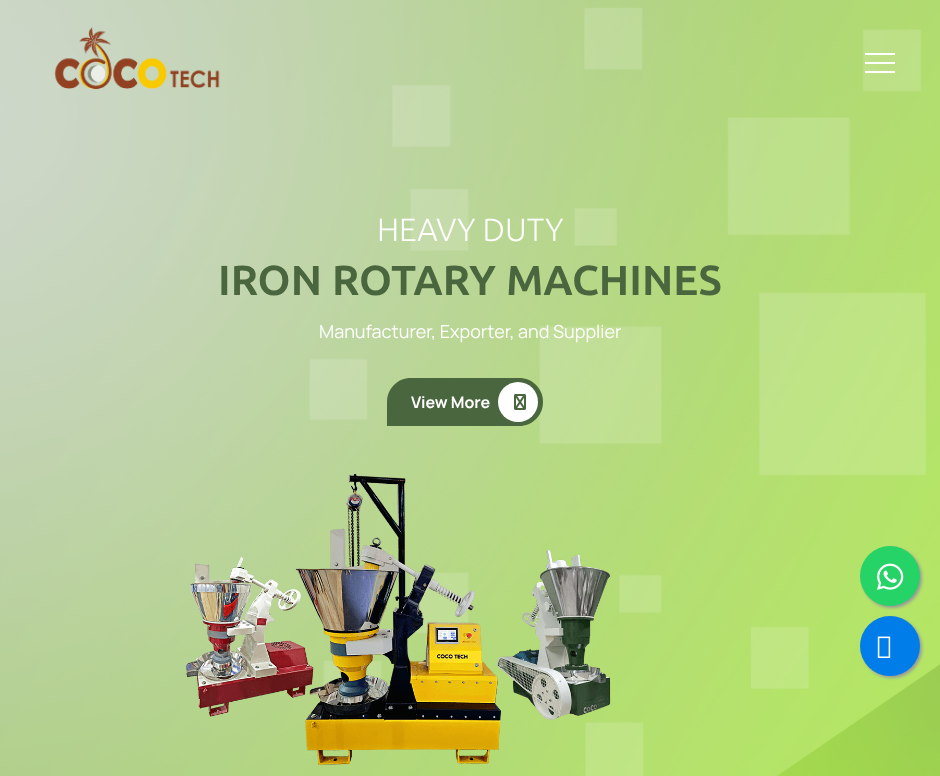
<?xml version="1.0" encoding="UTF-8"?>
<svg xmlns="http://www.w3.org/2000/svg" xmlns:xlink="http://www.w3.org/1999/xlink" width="940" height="776">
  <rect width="100%" height="100%" fill="#ffffff" />
  <image x="0" y="0" width="940" height="776" xlink:href="image1.png" />
  <image x="54" y="27" width="166" height="63" xlink:href="image2.png" />
  <rect x="865" y="53" width="30" height="2" fill="#ffffff" />
  <rect x="865" y="62" width="30" height="2" fill="#ffffff" />
  <rect x="865" y="71" width="30" height="2" fill="#ffffff" />
  <path d="M 411 378 h 108 c 13.5 0 24 10.5 24 24 c 0 13.5 -10.5 24 -24 24 h -132 v -24 c 0 -13.5 10.5 -24 24 -24 z" fill="#4a663e" />
  <circle cx="518" cy="402" r="20" fill="#ffffff" />
  <image x="514" y="394" width="12" height="16" xlink:href="image3.png" />
  <image x="186" y="474" width="425" height="291" xlink:href="image4.png" />
  <rect x="862" y="548" width="60" height="60" rx="30" fill="#999999" filter="blur(1.5px)" />
  <circle cx="890" cy="576" r="30" fill="#25d366" />
  <image x="877" y="563" width="27" height="27" xlink:href="image5.png" />
  <rect x="862" y="618" width="60" height="60" rx="30" fill="#999999" filter="blur(1.5px)" />
  <circle cx="890" cy="646" r="30" fill="#007de8" />
  <image x="877" y="636" width="14" height="22" xlink:href="image6.png" />
  <text x="377" y="241" style="font-family: Ubuntu; font-size: 32px; font-weight: 300; fill: #ffffff">HEAVY DUTY</text>
  <text x="218" y="295" style="font-family: Ubuntu; font-size: 42px; font-weight: bold; fill: #4a663e">IRON ROTARY MACHINES</text>
  <text x="319" y="338" style="font-family: Manrope; font-size: 18px; fill: #ffffff">Manufacturer, Exporter, and Supplier</text>
  <text x="411" y="408" style="font-family: Manrope; font-size: 16px; font-weight: bold; fill: #ffffff">View More</text>
</svg>
